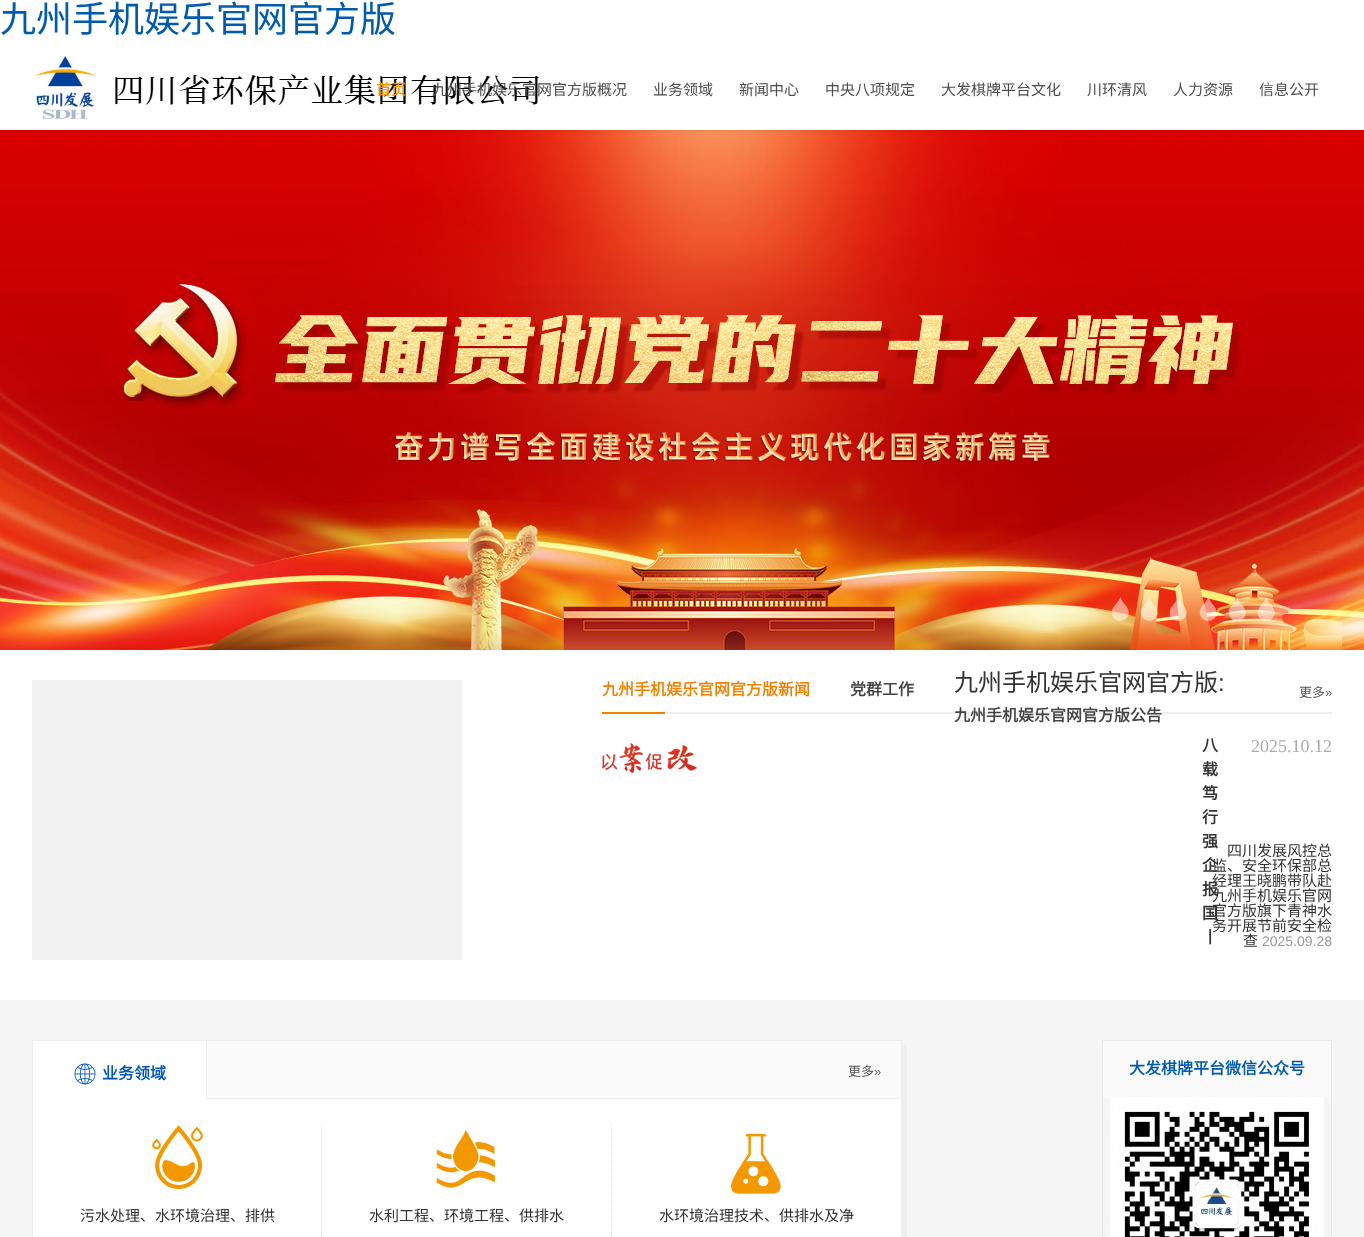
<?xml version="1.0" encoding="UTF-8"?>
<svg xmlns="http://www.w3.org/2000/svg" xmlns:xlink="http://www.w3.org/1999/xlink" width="1364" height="1237">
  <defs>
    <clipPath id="clip1"><rect x="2" y="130" width="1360" height="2" /></clipPath>
  </defs>
  <rect width="100%" height="100%" fill="#ffffff" />
  <image x="0" y="130" width="1364" height="520" xlink:href="image2.png" />
  <g clip-path="url(#clip1)">
    <rect x="2" y="44" width="1360" height="86" fill="#000000" fill-opacity="0.1" filter="blur(2px)" />
  </g>
  <image x="34" y="55" width="505" height="65" xlink:href="image1.png" />
  <image x="1111" y="597" width="18" height="24" xlink:href="image3.png" />
  <image x="1140" y="597" width="18" height="24" xlink:href="image4.png" />
  <image x="1169" y="597" width="18" height="24" xlink:href="image5.png" />
  <image x="1199" y="597" width="18" height="24" xlink:href="image6.png" />
  <image x="1228" y="597" width="18" height="24" xlink:href="image7.png" />
  <image x="1257" y="597" width="18" height="24" xlink:href="image8.png" />
  <rect x="32" y="680" width="430" height="280" fill="#f2f2f2" />
  <rect x="665" y="712" width="667" height="2" fill="#eeeeee" />
  <image x="602" y="743" width="95" height="30" xlink:href="image9.png" />
  <rect x="602" y="712" width="63" height="2" fill="#f08200" />
  <rect y="1000" width="1364" height="237" fill="#f5f5f5" />
  <path d="M 37 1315 v 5 h 870 v -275 h -5 v 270 z" fill="#eeeeee" />
  <rect x="33" y="1099" width="868" height="138" fill="#ffffff" />
  <rect x="32.5" y="1040.5" width="869" height="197" fill="none" stroke="#eeeeee" />
  <rect x="207" y="1041" width="694" height="57" fill="#fafafa" />
  <rect x="207" y="1098" width="694" height="1" fill="#eeeeee" />
  <rect x="33" y="1041" width="173" height="58" fill="#ffffff" />
  <rect x="206" y="1041" width="1" height="58" fill="#eeeeee" />
  <image x="74" y="1063" width="22" height="22" xlink:href="image10.png" />
  <path d="M 321.5 1124 v 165" fill="none" stroke="#dddddd" stroke-dasharray="1 1" />
  <image x="152" y="1125" width="51" height="65" xlink:href="image11.png" />
  <path d="M 611.5 1124 v 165" fill="none" stroke="#dddddd" stroke-dasharray="1 1" />
  <image x="436" y="1130" width="59" height="58" xlink:href="image12.png" />
  <image x="730" y="1133" width="51" height="61" xlink:href="image13.png" />
  <rect x="1102.5" y="1040.5" width="229" height="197" fill="none" stroke="#e8e8e8" />
  <rect x="1103" y="1041" width="228" height="56" fill="#fafafa" />
  <image x="1110" y="1097" width="214" height="140" xlink:href="image14.png" />
  <text x="0" y="32" style="font-family: Noto Sans CJK SC; font-size: 36px; fill: #005bac">九州手机娱乐官网官方版</text>
  <text x="376" y="95" style="font-family: Noto Sans CJK SC; font-size: 15px; font-weight: bold; fill: #f39800">首页</text>
  <text x="432" y="95" style="font-family: Noto Sans CJK SC; font-size: 15px; fill: #4c4c4c">九州手机娱乐官网官方版概况</text>
  <text x="653" y="95" style="font-family: Noto Sans CJK SC; font-size: 15px; fill: #4c4c4c">业务领域</text>
  <text x="739" y="95" style="font-family: Noto Sans CJK SC; font-size: 15px; fill: #4c4c4c">新闻中心</text>
  <text x="825" y="95" style="font-family: Noto Sans CJK SC; font-size: 15px; fill: #4c4c4c">中央八项规定</text>
  <text x="941" y="95" style="font-family: Noto Sans CJK SC; font-size: 15px; fill: #4c4c4c">大发棋牌平台文化</text>
  <text x="1087" y="95" style="font-family: Noto Sans CJK SC; font-size: 15px; fill: #4c4c4c">川环清风</text>
  <text x="1173" y="95" style="font-family: Noto Sans CJK SC; font-size: 15px; fill: #4c4c4c">人力资源</text>
  <text x="1259" y="95" style="font-family: Noto Sans CJK SC; font-size: 15px; fill: #4c4c4c">信息公开</text>
  <text x="602" y="695" style="font-family: Noto Sans CJK SC; font-size: 16px; font-weight: bold; fill: #f08200">九州手机娱乐官网官方版新闻</text>
  <text x="850" y="695" style="font-family: Noto Sans CJK SC; font-size: 16px; font-weight: bold; fill: #444444">党群工作</text>
  <text x="954" y="691" style="font-family: Noto Sans CJK SC; font-size: 24px; fill: #333333">九州手机娱乐官网官方版</text>
  <text x="1218" y="691" style="font-family: Liberation Sans; font-size: 24px; fill: #333333">:</text>
  <text x="954" y="721" style="font-family: Noto Sans CJK SC; font-size: 16px; font-weight: bold; fill: #444444">九州手机娱乐官网官方版公告</text>
  <text x="1299" y="697" style="font-family: Noto Sans CJK SC; font-size: 13px; fill: #525456">更多</text>
  <text x="1325" y="697" style="font-family: Liberation Sans; font-size: 13px; fill: #525456">»</text>
  <text x="1202" y="751" style="font-family: Noto Sans CJK SC; font-size: 16px; font-weight: bold; fill: #333333">八</text>
  <text x="1251" y="752" style="font-family: Liberation Serif; font-size: 18px; fill: #aaaaaa">2025.10.12</text>
  <text x="1202" y="775" style="font-family: Noto Sans CJK SC; font-size: 16px; font-weight: bold; fill: #333333">载</text>
  <text x="1202" y="799" style="font-family: Noto Sans CJK SC; font-size: 16px; font-weight: bold; fill: #333333">笃</text>
  <text x="1202" y="823" style="font-family: Noto Sans CJK SC; font-size: 16px; font-weight: bold; fill: #333333">行</text>
  <text x="1202" y="847" style="font-family: Noto Sans CJK SC; font-size: 16px; font-weight: bold; fill: #333333">强</text>
  <text x="1202" y="943" style="font-family: Noto Sans CJK SC; font-size: 16px; font-weight: bold; fill: #333333">丨</text>
  <text x="1227" y="856" style="font-family: Noto Sans CJK SC; font-size: 15px; fill: #333333">四川发展风控总</text>
  <text x="1212" y="871" style="font-family: Noto Sans CJK SC; font-size: 15px; fill: #333333">监、安全环保部总</text>
  <text x="1202" y="871" style="font-family: Noto Sans CJK SC; font-size: 16px; font-weight: bold; fill: #333333">企</text>
  <text x="1212" y="886" style="font-family: Noto Sans CJK SC; font-size: 15px; fill: #333333">经理王晓鹏带队赴</text>
  <text x="1212" y="901" style="font-family: Noto Sans CJK SC; font-size: 15px; fill: #333333">九州手机娱乐官网</text>
  <text x="1202" y="895" style="font-family: Noto Sans CJK SC; font-size: 16px; font-weight: bold; fill: #333333">报</text>
  <text x="1212" y="916" style="font-family: Noto Sans CJK SC; font-size: 15px; fill: #333333">官方版旗下青神水</text>
  <text x="1202" y="919" style="font-family: Noto Sans CJK SC; font-size: 16px; font-weight: bold; fill: #333333">国</text>
  <text x="1212" y="931" style="font-family: Noto Sans CJK SC; font-size: 15px; fill: #333333">务开展节前安全检</text>
  <text x="1243" y="946" style="font-family: Noto Sans CJK SC; font-size: 15px; fill: #333333">查</text>
  <text x="1262" y="946" style="font-family: Liberation Sans; font-size: 14px; fill: #999999">2025.09.28</text>
  <text x="102" y="1079" style="font-family: Noto Sans CJK SC; font-size: 16px; font-weight: bold; fill: #0056b7">业务领域</text>
  <text x="848" y="1076" style="font-family: Noto Sans CJK SC; font-size: 13px; fill: #525456">更多</text>
  <text x="874" y="1076" style="font-family: Liberation Sans; font-size: 13px; fill: #525456">»</text>
  <text x="80" y="1221" style="font-family: Noto Sans CJK SC; font-size: 15px; fill: #333333">污水处理、水环境治理、排供</text>
  <text x="369" y="1221" style="font-family: Noto Sans CJK SC; font-size: 15px; fill: #333333">水利工程、环境工程、供排水</text>
  <text x="659" y="1221" style="font-family: Noto Sans CJK SC; font-size: 15px; fill: #333333">水环境治理技术、供排水及净</text>
  <text x="1129" y="1074" style="font-family: Noto Sans CJK SC; font-size: 16px; font-weight: bold; fill: #005bac">大发棋牌平台微信公众号</text>
</svg>
